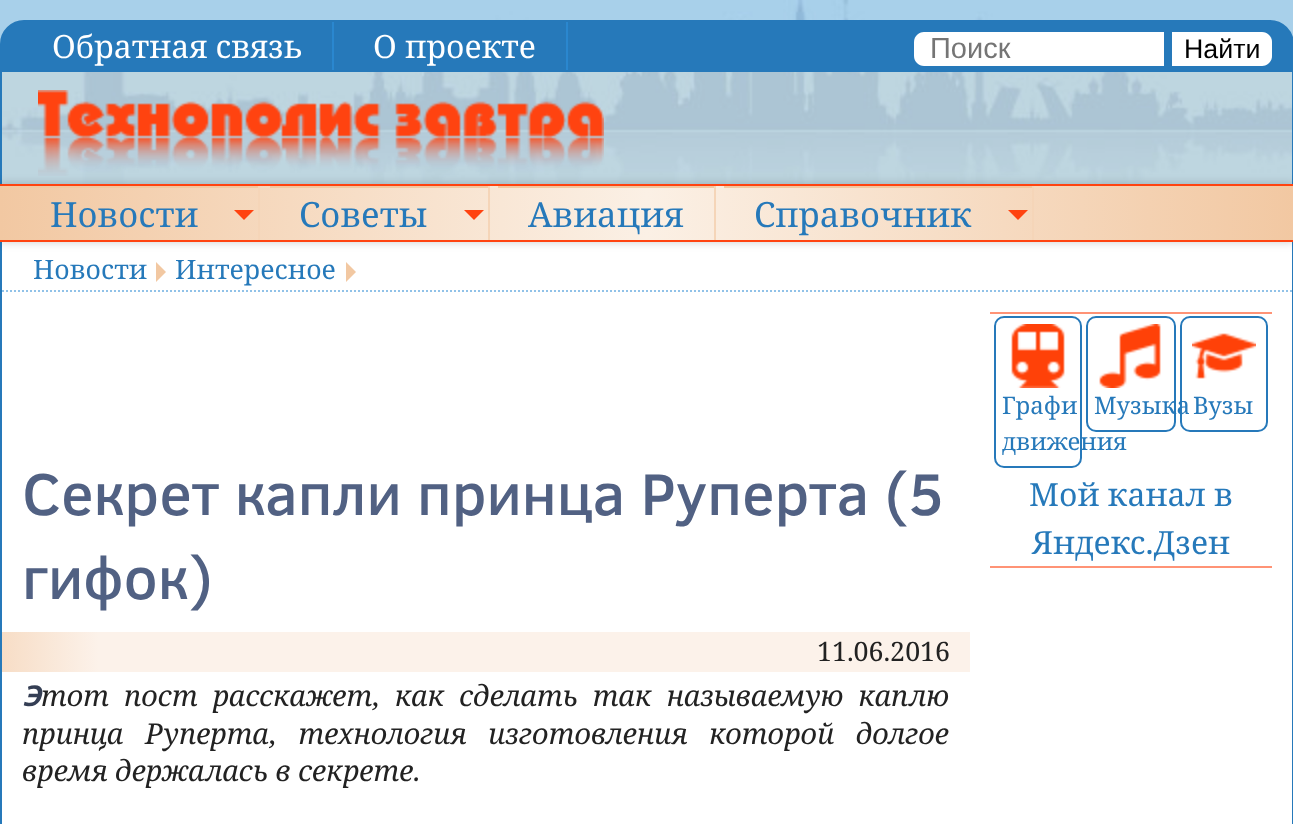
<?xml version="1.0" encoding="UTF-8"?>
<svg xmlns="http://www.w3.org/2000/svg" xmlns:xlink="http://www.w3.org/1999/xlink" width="1293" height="824">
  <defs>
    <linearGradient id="g1" gradientUnits="userSpaceOnUse" x1="0" y1="213" x2="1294" y2="213"><stop offset="0" stop-color="#f2c8a2" /><stop offset="0.5" stop-color="#fbf0e5" /><stop offset="1" stop-color="#f2c8a2" /></linearGradient>
    <linearGradient id="g2" gradientUnits="userSpaceOnUse" x1="2" y1="652" x2="970" y2="652"><stop offset="0" stop-color="#f7ddc6" /><stop offset="0.1" stop-color="#fcf2ea" /></linearGradient>
  </defs>
  <rect width="100%" height="100%" fill="#ffffff" />
  <image x="0" y="0" width="1293" height="184" xlink:href="image1.png" />
  <path d="M 24 21 h 1246 c 12.5 0 23 10.5 23 23 v 27 h -1292 v -27 c 0 -12.5 10.5 -23 23 -23 z" fill="#2679ba" stroke="#2679ba" stroke-width="2" />
  <rect x="332" y="22" width="2" height="48" fill="#2a87cf" />
  <rect x="566" y="22" width="2" height="48" fill="#2a87cf" />
  <path d="M 924 32 h 240 v 34 h -240 c -5.5 0 -10 -4.5 -10 -10 v -14 c 0 -5.5 4.5 -10 10 -10 z" fill="#ffffff" />
  <path d="M 1172 32 h 90 c 5.5 0 10 4.5 10 10 v 14 c 0 5.5 -4.5 10 -10 10 h -90 z" fill="#ffffff" />
  <rect x="2" y="72" width="1290" height="112" fill="#ffe7c3" fill-opacity="0.25" />
  <rect x="1292" y="72" width="1" height="112" fill="#2679ba" />
  <rect y="72" width="2" height="112" fill="#2679ba" />
  <image x="38" y="90" width="566" height="86" xlink:href="image2.png" />
  <rect x="1292" y="242" width="1" height="582" fill="#2679ba" />
  <rect y="242" width="2" height="582" fill="#2679ba" />
  <rect y="184" width="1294" height="58" fill="#000000" fill-opacity="0.2" filter="blur(5px)" />
  <rect y="186" width="1293" height="54" fill="url(#g1)" />
  <rect y="184" width="1293" height="2" fill="#ff4310" />
  <rect y="240" width="1293" height="2" fill="#ff4310" />
  <rect x="20" y="186" width="240" height="2" fill="#f2c8a2" />
  <rect x="258" y="186" width="2" height="54" fill="#f5d5b8" />
  <path d="M 234 210 h 20 l -10 10 z" fill="#ff4310" />
  <rect x="270" y="186" width="220" height="2" fill="#f2c8a2" />
  <rect x="488" y="186" width="2" height="54" fill="#f5d5b8" />
  <path d="M 464 210 h 20 l -10 10 z" fill="#ff4310" />
  <rect x="498" y="186" width="218" height="2" fill="#f2c8a2" />
  <rect x="714" y="186" width="2" height="54" fill="#f5d5b8" />
  <rect x="724" y="186" width="310" height="2" fill="#f2c8a2" />
  <rect x="1032" y="186" width="2" height="54" fill="#f5d5b8" />
  <path d="M 1008 210 h 20 l -10 10 z" fill="#ff4310" />
  <path d="M 2 291 h 1290" fill="none" stroke="#91c2e8" stroke-width="2" stroke-dasharray="2 2" />
  <path d="M 156 282 v -20 l 10 10 z" fill="#f2c8a2" />
  <path d="M 346 282 v -20 l 10 10 z" fill="#f2c8a2" />
  <rect x="2" y="632" width="968" height="40" fill="url(#g2)" />
  <rect x="990" y="312" width="282" height="2" fill="#ff9376" />
  <rect x="990" y="566" width="282" height="2" fill="#ff9376" />
  <rect x="995" y="317" width="86" height="150" rx="9" fill="none" stroke="#2679ba" stroke-width="2" />
  <image x="1011" y="324" width="54" height="64" xlink:href="image3.png" />
  <rect x="1087" y="317" width="88" height="114" rx="9" fill="none" stroke="#2679ba" stroke-width="2" />
  <image x="1099" y="324" width="62" height="64" xlink:href="image4.png" />
  <rect x="1181" y="317" width="86" height="114" rx="9" fill="none" stroke="#2679ba" stroke-width="2" />
  <image x="1192" y="333" width="64" height="46" xlink:href="image5.png" />
  <text x="52" y="58" style="font-family: Noto Serif; font-size: 32px; fill: #ffffff">Обратная связь</text>
  <text x="373" y="58" style="font-family: Noto Serif; font-size: 32px; fill: #ffffff">О проекте</text>
  <text x="930" y="58" style="font-family: Liberation Sans; font-size: 29px; fill: #757575">Поиск</text>
  <text x="1184" y="58" style="font-family: Liberation Sans; font-size: 26.75px; fill: #000000">Найти</text>
  <text x="50" y="227" style="font-family: Noto Serif; font-size: 34.75px; fill: #2679ba">Новости</text>
  <text x="299" y="227" style="font-family: Noto Serif; font-size: 34.75px; fill: #2679ba">Советы</text>
  <text x="528" y="227" style="font-family: Noto Serif; font-size: 34.75px; fill: #2679ba">Авиация</text>
  <text x="754" y="227" style="font-family: Noto Serif; font-size: 34.75px; fill: #2679ba">Справочник</text>
  <text x="33" y="279" style="font-family: Noto Serif; font-size: 26.75px; fill: #2679ba">Новости</text>
  <text x="175" y="279" style="font-family: Noto Serif; font-size: 26.75px; fill: #2679ba">Интересное</text>
  <text x="22" y="515" style="font-family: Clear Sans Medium; font-size: 60px; font-weight: 500; fill: #516183">Секрет капли принца Руперта (5</text>
  <text x="22" y="599" style="font-family: Clear Sans Medium; font-size: 60px; font-weight: 500; fill: #516183">гифок)</text>
  <text x="817" y="661" style="font-family: Noto Serif; font-size: 26.75px; fill: #222222">11.06.2016</text>
  <text x="22" y="706" style="font-family: Noto Sans; font-size: 28.8px; font-weight: bold; font-style: italic; fill: #343e54">Э</text>
  <text x="41" y="706" word-spacing="7.5" style="font-family: Noto Serif; font-size: 28.8px; font-style: italic; fill: #222222">тот пост расскажет, как сделать так называемую каплю</text>
  <text x="22" y="744" word-spacing="14" style="font-family: Noto Serif; font-size: 28.8px; font-style: italic; fill: #222222">принца Руперта, технология изготовления которой долгое</text>
  <text x="22" y="781" style="font-family: Noto Serif; font-size: 28.8px; font-style: italic; fill: #222222">время держалась в секрете.</text>
  <text x="1002" y="414" style="font-family: Noto Serif; font-size: 24px; fill: #2679ba">Графи</text>
  <text x="1002" y="450" style="font-family: Noto Serif; font-size: 24px; fill: #2679ba">движения</text>
  <text x="1094" y="414" style="font-family: Noto Serif; font-size: 24px; fill: #2679ba">Музыка</text>
  <text x="1193" y="414" style="font-family: Noto Serif; font-size: 24px; fill: #2679ba">Вузы</text>
  <text x="1029" y="506" style="font-family: Noto Serif; font-size: 32px; fill: #2679ba">Мой канал в</text>
  <text x="1032" y="554" style="font-family: Noto Serif; font-size: 32px; fill: #2679ba">Яндекс.Дзен</text>
</svg>
